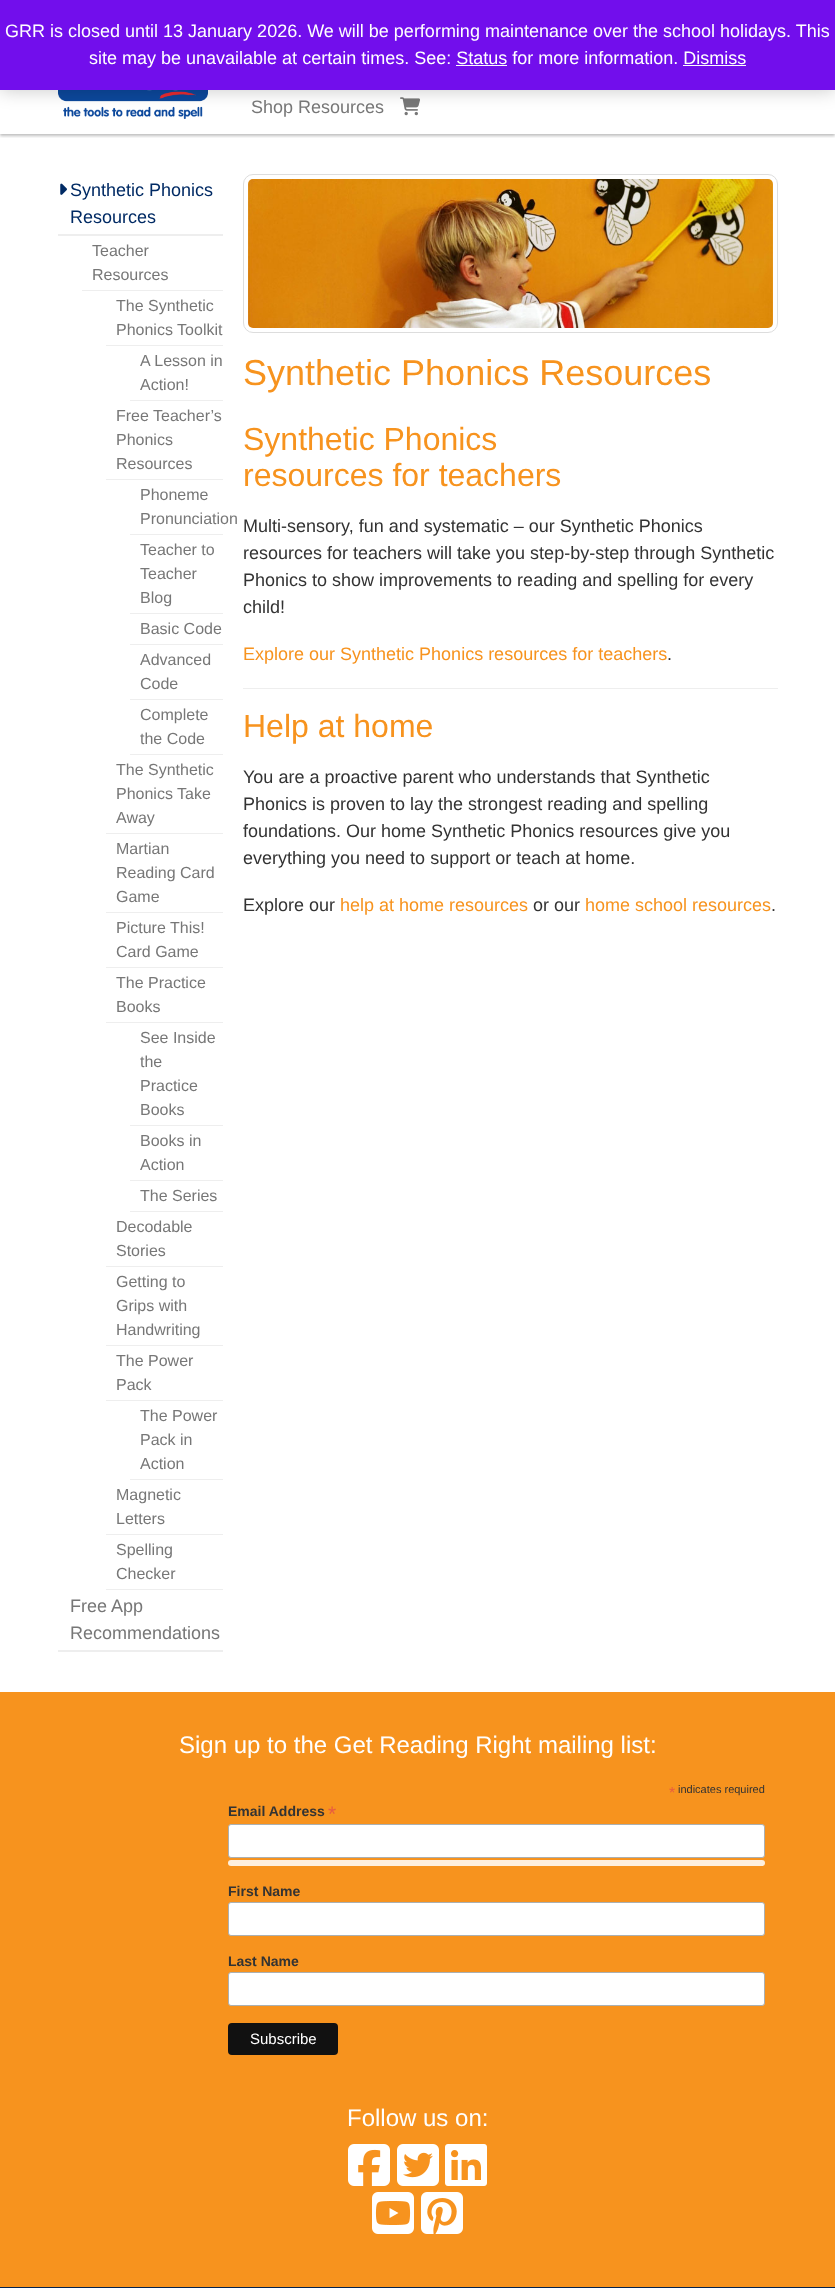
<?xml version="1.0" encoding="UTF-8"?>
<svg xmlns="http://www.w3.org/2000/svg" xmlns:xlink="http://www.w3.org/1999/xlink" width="835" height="2288">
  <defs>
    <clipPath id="clip1"><rect x="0" y="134" width="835" height="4" /></clipPath>
  </defs>
  <rect width="100%" height="100%" fill="#ffffff" />
  <g clip-path="url(#clip1)">
    <rect y="56" width="835" height="80" fill="#000000" fill-opacity="0.25" filter="blur(1.5px)" />
  </g>
  <image x="58" y="90" width="150" height="29" xlink:href="image1.png" />
  <image x="400" y="97" width="20" height="19" xlink:href="image2.png" />
  <rect y="1" width="835" height="90" fill="#000000" fill-opacity="0.2" filter="blur(9px)" />
  <rect width="835" height="90" fill="#720eec" />
  <rect x="58" y="234" width="165" height="2" fill="#eeeeee" />
  <image x="60" y="183" width="7" height="12" xlink:href="image3.png" />
  <rect x="82" y="290" width="141" height="1" fill="#eeeeee" />
  <rect x="106" y="345" width="117" height="1" fill="#eeeeee" />
  <rect x="130" y="400" width="93" height="1" fill="#eeeeee" />
  <rect x="106" y="479" width="117" height="1" fill="#eeeeee" />
  <rect x="130" y="534" width="93" height="1" fill="#eeeeee" />
  <rect x="130" y="613" width="93" height="1" fill="#eeeeee" />
  <rect x="130" y="644" width="93" height="1" fill="#eeeeee" />
  <rect x="130" y="699" width="93" height="1" fill="#eeeeee" />
  <rect x="130" y="754" width="93" height="1" fill="#eeeeee" />
  <rect x="106" y="833" width="117" height="1" fill="#eeeeee" />
  <rect x="106" y="912" width="117" height="1" fill="#eeeeee" />
  <rect x="106" y="967" width="117" height="1" fill="#eeeeee" />
  <rect x="106" y="1022" width="117" height="1" fill="#eeeeee" />
  <rect x="130" y="1125" width="93" height="1" fill="#eeeeee" />
  <rect x="130" y="1180" width="93" height="1" fill="#eeeeee" />
  <rect x="130" y="1211" width="93" height="1" fill="#eeeeee" />
  <rect x="106" y="1266" width="117" height="1" fill="#eeeeee" />
  <rect x="106" y="1345" width="117" height="1" fill="#eeeeee" />
  <rect x="106" y="1400" width="117" height="1" fill="#eeeeee" />
  <rect x="130" y="1479" width="93" height="1" fill="#eeeeee" />
  <rect x="106" y="1534" width="117" height="1" fill="#eeeeee" />
  <rect x="106" y="1589" width="117" height="1" fill="#eeeeee" />
  <rect x="58" y="1650" width="165" height="2" fill="#eeeeee" />
  <rect x="243.5" y="174.5" width="534" height="158" rx="9.5" fill="none" stroke="#dddddd" />
  <image x="248" y="179" width="525" height="149" xlink:href="image4.png" />
  <rect x="243" y="688" width="535" height="1" fill="#eeeeee" />
  <rect y="1692" width="835" height="595" fill="#f7931e" />
  <rect x="228.5" y="1824.5" width="536" height="33" rx="2.5" fill="#ffffff" stroke="#abb0b2" />
  <rect x="228" y="1860" width="537" height="6" rx="3" fill="#feefdd" />
  <rect x="228.5" y="1902.5" width="536" height="33" rx="2.5" fill="#ffffff" stroke="#abb0b2" />
  <rect x="228.5" y="1972.5" width="536" height="33" rx="2.5" fill="#ffffff" stroke="#abb0b2" />
  <rect x="228" y="2023" width="110" height="32" rx="4" fill="#111111" />
  <image x="348" y="2144" width="42" height="42" xlink:href="image5.png" />
  <image x="397" y="2144" width="42" height="42" xlink:href="image6.png" />
  <image x="445" y="2144" width="42" height="42" xlink:href="image7.png" />
  <image x="372" y="2192" width="42" height="42" xlink:href="image8.png" />
  <image x="421" y="2192" width="42" height="42" xlink:href="image9.png" />
  <rect y="2287" width="835" height="1" fill="#06234d" />
  <text x="5" y="37" style="font-family: Liberation Sans; font-size: 18px; fill: #ffffff">GRR is closed until 13 January 2026. We will be performing maintenance over the school holidays. This</text>
  <text x="89" y="64" style="font-family: Liberation Sans; font-size: 18px; fill: #ffffff">site may be unavailable at certain times. See: Status for more information. Dismiss</text>
  <rect x="456" y="65" width="51" height="1" fill="#fcfbfe" />
  <rect x="683" y="65" width="63" height="1" fill="#fcfbfe" />
  <text x="251" y="113" style="font-family: Liberation Sans; font-size: 18px; fill: #777777">Shop Resources</text>
  <text x="70" y="196" style="font-family: Liberation Sans; font-size: 18px; fill: #002a64">Synthetic Phonics</text>
  <text x="70" y="223" style="font-family: Liberation Sans; font-size: 18px; fill: #002a64">Resources</text>
  <text x="92" y="256" style="font-family: Liberation Sans; font-size: 16px; fill: #777777">Teacher</text>
  <text x="92" y="280" style="font-family: Liberation Sans; font-size: 16px; fill: #777777">Resources</text>
  <text x="116" y="311" style="font-family: Liberation Sans; font-size: 16px; fill: #777777">The Synthetic</text>
  <text x="116" y="335" style="font-family: Liberation Sans; font-size: 16px; fill: #777777">Phonics Toolkit</text>
  <text x="140" y="366" style="font-family: Liberation Sans; font-size: 16px; fill: #777777">A Lesson in</text>
  <text x="140" y="390" style="font-family: Liberation Sans; font-size: 16px; fill: #777777">Action!</text>
  <text x="116" y="421" style="font-family: Liberation Sans; font-size: 16px; fill: #777777">Free Teacher’s</text>
  <text x="116" y="445" style="font-family: Liberation Sans; font-size: 16px; fill: #777777">Phonics</text>
  <text x="116" y="469" style="font-family: Liberation Sans; font-size: 16px; fill: #777777">Resources</text>
  <text x="140" y="500" style="font-family: Liberation Sans; font-size: 16px; fill: #777777">Phoneme</text>
  <text x="140" y="524" style="font-family: Liberation Sans; font-size: 16px; fill: #777777">Pronunciation</text>
  <text x="140" y="555" style="font-family: Liberation Sans; font-size: 16px; fill: #777777">Teacher to</text>
  <text x="140" y="579" style="font-family: Liberation Sans; font-size: 16px; fill: #777777">Teacher</text>
  <text x="140" y="603" style="font-family: Liberation Sans; font-size: 16px; fill: #777777">Blog</text>
  <text x="140" y="634" style="font-family: Liberation Sans; font-size: 16px; fill: #777777">Basic Code</text>
  <text x="140" y="665" style="font-family: Liberation Sans; font-size: 16px; fill: #777777">Advanced</text>
  <text x="140" y="689" style="font-family: Liberation Sans; font-size: 16px; fill: #777777">Code</text>
  <text x="140" y="720" style="font-family: Liberation Sans; font-size: 16px; fill: #777777">Complete</text>
  <text x="140" y="744" style="font-family: Liberation Sans; font-size: 16px; fill: #777777">the Code</text>
  <text x="116" y="775" style="font-family: Liberation Sans; font-size: 16px; fill: #777777">The Synthetic</text>
  <text x="116" y="799" style="font-family: Liberation Sans; font-size: 16px; fill: #777777">Phonics Take</text>
  <text x="116" y="823" style="font-family: Liberation Sans; font-size: 16px; fill: #777777">Away</text>
  <text x="116" y="854" style="font-family: Liberation Sans; font-size: 16px; fill: #777777">Martian</text>
  <text x="116" y="878" style="font-family: Liberation Sans; font-size: 16px; fill: #777777">Reading Card</text>
  <text x="116" y="902" style="font-family: Liberation Sans; font-size: 16px; fill: #777777">Game</text>
  <text x="116" y="933" style="font-family: Liberation Sans; font-size: 16px; fill: #777777">Picture This!</text>
  <text x="116" y="957" style="font-family: Liberation Sans; font-size: 16px; fill: #777777">Card Game</text>
  <text x="116" y="988" style="font-family: Liberation Sans; font-size: 16px; fill: #777777">The Practice</text>
  <text x="116" y="1012" style="font-family: Liberation Sans; font-size: 16px; fill: #777777">Books</text>
  <text x="140" y="1043" style="font-family: Liberation Sans; font-size: 16px; fill: #777777">See Inside</text>
  <text x="140" y="1067" style="font-family: Liberation Sans; font-size: 16px; fill: #777777">the</text>
  <text x="140" y="1091" style="font-family: Liberation Sans; font-size: 16px; fill: #777777">Practice</text>
  <text x="140" y="1115" style="font-family: Liberation Sans; font-size: 16px; fill: #777777">Books</text>
  <text x="140" y="1146" style="font-family: Liberation Sans; font-size: 16px; fill: #777777">Books in</text>
  <text x="140" y="1170" style="font-family: Liberation Sans; font-size: 16px; fill: #777777">Action</text>
  <text x="140" y="1201" style="font-family: Liberation Sans; font-size: 16px; fill: #777777">The Series</text>
  <text x="116" y="1232" style="font-family: Liberation Sans; font-size: 16px; fill: #777777">Decodable</text>
  <text x="116" y="1256" style="font-family: Liberation Sans; font-size: 16px; fill: #777777">Stories</text>
  <text x="116" y="1287" style="font-family: Liberation Sans; font-size: 16px; fill: #777777">Getting to</text>
  <text x="116" y="1311" style="font-family: Liberation Sans; font-size: 16px; fill: #777777">Grips with</text>
  <text x="116" y="1335" style="font-family: Liberation Sans; font-size: 16px; fill: #777777">Handwriting</text>
  <text x="116" y="1366" style="font-family: Liberation Sans; font-size: 16px; fill: #777777">The Power</text>
  <text x="116" y="1390" style="font-family: Liberation Sans; font-size: 16px; fill: #777777">Pack</text>
  <text x="140" y="1421" style="font-family: Liberation Sans; font-size: 16px; fill: #777777">The Power</text>
  <text x="140" y="1445" style="font-family: Liberation Sans; font-size: 16px; fill: #777777">Pack in</text>
  <text x="140" y="1469" style="font-family: Liberation Sans; font-size: 16px; fill: #777777">Action</text>
  <text x="116" y="1500" style="font-family: Liberation Sans; font-size: 16px; fill: #777777">Magnetic</text>
  <text x="116" y="1524" style="font-family: Liberation Sans; font-size: 16px; fill: #777777">Letters</text>
  <text x="116" y="1555" style="font-family: Liberation Sans; font-size: 16px; fill: #777777">Spelling</text>
  <text x="116" y="1579" style="font-family: Liberation Sans; font-size: 16px; fill: #777777">Checker</text>
  <text x="70" y="1612" style="font-family: Liberation Sans; font-size: 18px; fill: #777777">Free App</text>
  <text x="70" y="1639" style="font-family: Liberation Sans; font-size: 18px; fill: #777777">Recommendations</text>
  <text x="243" y="385" style="font-family: Liberation Sans; font-size: 36px; fill: #f7931e">Synthetic Phonics Resources</text>
  <text x="243" y="450" style="font-family: Liberation Sans; font-size: 32px; fill: #f7931e">Synthetic Phonics</text>
  <text x="243" y="486" style="font-family: Liberation Sans; font-size: 32px; fill: #f7931e">resources for teachers</text>
  <text x="243" y="532" style="font-family: Liberation Sans; font-size: 18px; fill: #333333">Multi-sensory, fun and systematic – our Synthetic Phonics</text>
  <text x="243" y="559" style="font-family: Liberation Sans; font-size: 18px; fill: #333333">resources for teachers will take you step-by-step through Synthetic</text>
  <text x="243" y="586" style="font-family: Liberation Sans; font-size: 18px; fill: #333333">Phonics to show improvements to reading and spelling for every</text>
  <text x="243" y="613" style="font-family: Liberation Sans; font-size: 18px; fill: #333333">child!</text>
  <text x="243" y="660" style="font-family: Liberation Sans; font-size: 18px; fill: #f7931e">Explore our Synthetic Phonics resources for teachers</text>
  <text x="667" y="660" style="font-family: Liberation Sans; font-size: 18px; fill: #333333">.</text>
  <text x="243" y="737" style="font-family: Liberation Sans; font-size: 32px; fill: #f7931e">Help at home</text>
  <text x="243" y="783" style="font-family: Liberation Sans; font-size: 18px; fill: #333333">You are a proactive parent who understands that Synthetic</text>
  <text x="243" y="810" style="font-family: Liberation Sans; font-size: 18px; fill: #333333">Phonics is proven to lay the strongest reading and spelling</text>
  <text x="243" y="837" style="font-family: Liberation Sans; font-size: 18px; fill: #333333">foundations. Our home Synthetic Phonics resources give you</text>
  <text x="243" y="864" style="font-family: Liberation Sans; font-size: 18px; fill: #333333">everything you need to support or teach at home.</text>
  <text x="243" y="911" style="font-family: Liberation Sans; font-size: 18px; fill: #333333">Explore our</text>
  <text x="340" y="911" style="font-family: Liberation Sans; font-size: 18px; fill: #f7931e">help at home resources</text>
  <text x="533" y="911" style="font-family: Liberation Sans; font-size: 18px; fill: #333333">or our</text>
  <text x="585" y="911" style="font-family: Liberation Sans; font-size: 18px; fill: #f7931e">home school resources</text>
  <text x="771" y="911" style="font-family: Liberation Sans; font-size: 18px; fill: #333333">.</text>
  <text x="179" y="1753" style="font-family: Liberation Sans; font-size: 24px; fill: #ffffff">Sign up to the Get Reading Right mailing list:</text>
  <text x="669" y="1798" style="font-family: Liberation Sans; font-size: 16px; fill: #e85c41">*</text>
  <text x="678" y="1793" style="font-family: Liberation Sans; font-size: 11px; fill: #333333">indicates required</text>
  <text x="228" y="1816" style="font-family: Liberation Sans; font-size: 14px; font-weight: bold; fill: #333333">Email Address</text>
  <text x="328" y="1821" style="font-family: Liberation Sans; font-size: 21px; fill: #e85c41">*</text>
  <text x="228" y="1896" style="font-family: Liberation Sans; font-size: 14px; font-weight: bold; fill: #333333">First Name</text>
  <text x="228" y="1966" style="font-family: Liberation Sans; font-size: 14px; font-weight: bold; fill: #333333">Last Name</text>
  <text x="250" y="2044" style="font-family: Liberation Sans; font-size: 15px; fill: #ffffff">Subscribe</text>
  <text x="347" y="2126" style="font-family: Liberation Sans; font-size: 24px; fill: #ffffff">Follow us on:</text>
</svg>
